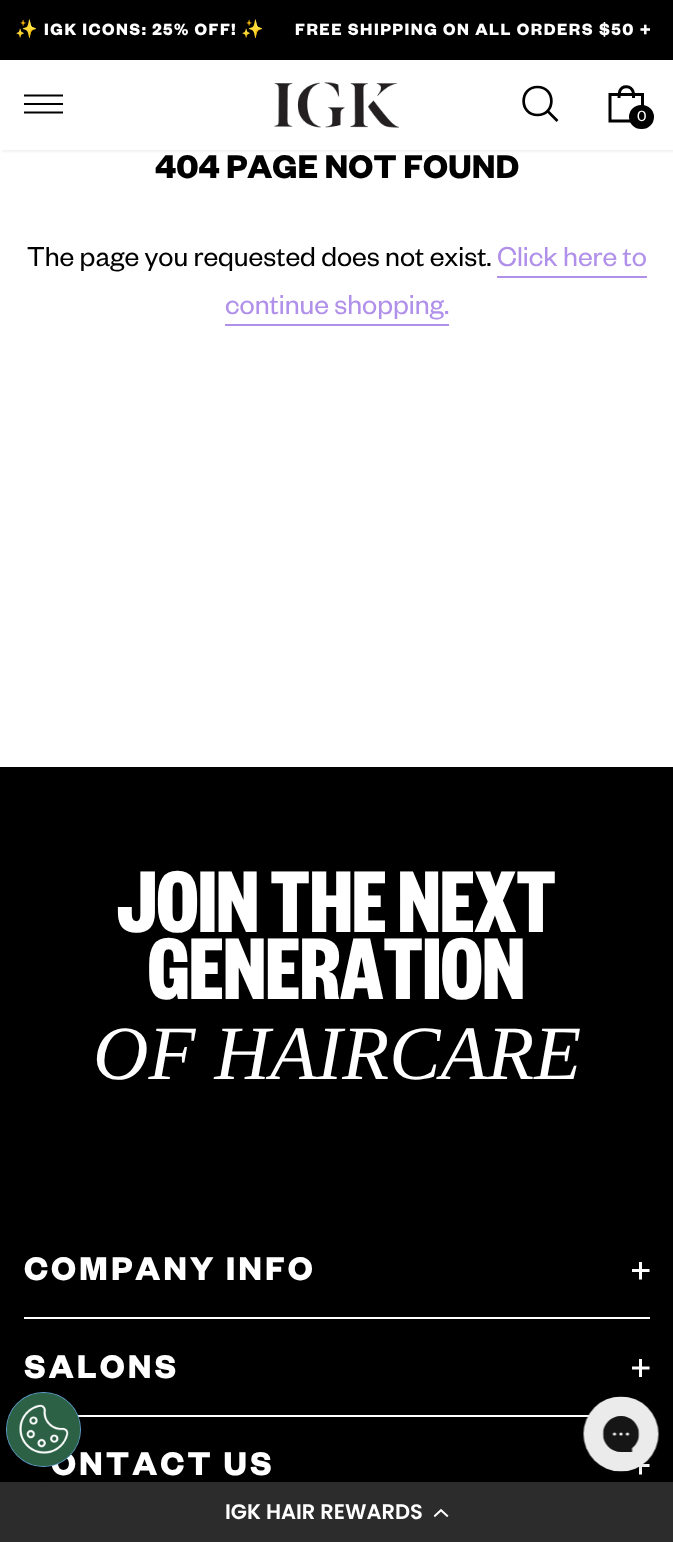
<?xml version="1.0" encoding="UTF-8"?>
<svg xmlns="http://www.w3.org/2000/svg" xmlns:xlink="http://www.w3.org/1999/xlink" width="673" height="1542">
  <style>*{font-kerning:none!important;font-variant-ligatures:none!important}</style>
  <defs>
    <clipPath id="clip1"><rect x="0" y="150" width="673" height="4" /></clipPath>
    <clipPath id="clip2"><rect x="24" y="93" width="39" height="21" /></clipPath>
    <clipPath id="clip3"><rect x="632" y="1262" width="18" height="18" /></clipPath>
    <clipPath id="clip4"><rect x="632" y="1359" width="18" height="18" /></clipPath>
  </defs>
  <rect width="100%" height="100%" fill="#ffffff" />
  <rect width="673" height="60" fill="#000000" />
  <g clip-path="url(#clip1)">
    <rect x="2" y="62" width="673" height="90" fill="#f2f2f2" filter="blur(1px)" />
  </g>
  <g clip-path="url(#clip2)">
    <path d="M 24 95.5 h 39.5" fill="none" stroke="#000000" stroke-width="2.1" />
  </g>
  <rect x="24" y="103" width="39" height="2" fill="#000000" />
  <g clip-path="url(#clip2)">
    <path d="M 24 112.5 h 39.5" fill="none" stroke="#000000" stroke-width="2.1" />
  </g>
  <image x="274" y="82" width="125" height="46" xlink:href="image1.png" />
  <path d="M 537.5 115 c 18.5 0 18.5 -28 0 -28 c -18.5 0 -18.5 28 0 28 z" fill="none" stroke="#000000" stroke-width="2.7" />
  <path d="M 548.5 112 l 8 8" fill="none" stroke="#000000" stroke-width="2.7" stroke-linecap="square" />
  <path d="M 610 94.5 h 32.5 v 26.5 h -32.5 z m 9 3.5 c 0 -2.5 0 -5 1 -7.5 c 2.5 -5.5 11 -5 13 1 c 1 2 0.5 4.5 0.5 6.5" fill="none" stroke="#000000" stroke-width="3" />
  <rect x="630" y="106" width="23" height="22" rx="11" fill="#000000" stroke="#000000" stroke-width="2" />
  <rect x="497" y="276" width="150" height="2" fill="#b190ea" />
  <rect x="225" y="324" width="224" height="2" fill="#b190ea" />
  <rect y="767" width="673" height="715" fill="#000000" />
  <rect x="24" y="1317" width="626" height="2" fill="#ffffff" />
  <g clip-path="url(#clip3)">
    <path d="M 640.5 1261.5 v 18 m -9 -9 h 18" fill="none" stroke="#ffffff" stroke-width="3" />
  </g>
  <rect x="78" y="1415" width="512" height="2" fill="#ffffff" />
  <g clip-path="url(#clip4)">
    <path d="M 640.5 1359 v 18 m -9 -9 h 18" fill="none" stroke="#ffffff" stroke-width="3" />
  </g>
  <path d="M 640.5 1456.5 v 18 m -9 -9 h 18" fill="none" stroke="#ffffff" stroke-width="3" />
  <rect y="1482" width="673" height="60" fill="#2c2c2c" />
  <rect x="6" y="1398" width="75" height="75" rx="37.5" fill="#000000" fill-opacity="0.2" filter="blur(6px)" />
  <image x="583" y="1396" width="76" height="78" xlink:href="image3.png" />
  <image x="434" y="1508" width="15" height="10" xlink:href="image4.png" />
  <text x="15" y="35" style="font-family: Noto Color Emoji; font-size: 18px; letter-spacing: 1.5px; fill: #ffffff">✨</text>
  <text x="44" y="35" style="font-family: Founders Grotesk; font-size: 18px; font-weight: bold; letter-spacing: 1.5px; fill: #ffffff">IGK ICONS: 25% OFF!</text>
  <text x="241" y="35" style="font-family: Noto Color Emoji; font-size: 18px; letter-spacing: 1.5px; fill: #ffffff">✨</text>
  <text x="295" y="35" style="font-family: Founders Grotesk; font-size: 18px; font-weight: bold; letter-spacing: 1.5px; fill: #ffffff">FREE SHIPPING ON ALL ORDERS $50 +</text>
  <text x="637" y="121" style="font-family: Founders Grotesk; font-size: 16px; fill: #ffffff">0</text>
  <text x="155" y="178" style="font-family: Founders Grotesk; font-size: 36px; font-weight: bold; fill: #000000">404 PAGE NOT FOUND</text>
  <text x="27" y="266" style="font-family: Founders Grotesk; font-size: 30px; fill: #000000">The page you requested does not exist.</text>
  <text x="497" y="266" style="font-family: Founders Grotesk; font-size: 30px; fill: #b190ea">Click here to</text>
  <text x="225" y="314" style="font-family: Founders Grotesk; font-size: 30px; fill: #b190ea">continue shopping.</text>
  <text x="117" y="932" style="font-family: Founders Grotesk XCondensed; font-size: 96px; font-weight: bold; fill: #ffffff">JOIN THE NEXT</text>
  <text x="148" y="999" style="font-family: Founders Grotesk XCondensed; font-size: 96px; font-weight: bold; fill: #ffffff">GENERATION</text>
  <text x="93" y="1079" style="font-family: Liberation Serif; font-size: 76.75px; font-style: italic; fill: #ffffff">OF HAIRCARE</text>
  <text x="24" y="1280" style="font-family: Founders Grotesk; font-size: 36px; font-weight: bold; letter-spacing: 3px; fill: #ffffff">COMPANY INFO</text>
  <text x="24" y="1378" style="font-family: Founders Grotesk; font-size: 36px; font-weight: bold; letter-spacing: 3px; fill: #ffffff">SALONS</text>
  <text x="51" y="1475" style="font-family: Founders Grotesk; font-size: 36px; font-weight: bold; letter-spacing: 3px; fill: #ffffff">ONTACT US</text>
  <circle cx="43.5" cy="1429.5" r="37.5" fill="#6aaae4" />
  <image x="6" y="1392" width="75" height="75" xlink:href="image2.png" />
  <text x="225" y="1519" style="font-family: Poppins; font-size: 21px; font-weight: 600; fill: #ffffff">IGK HAIR REWARDS</text>
</svg>
